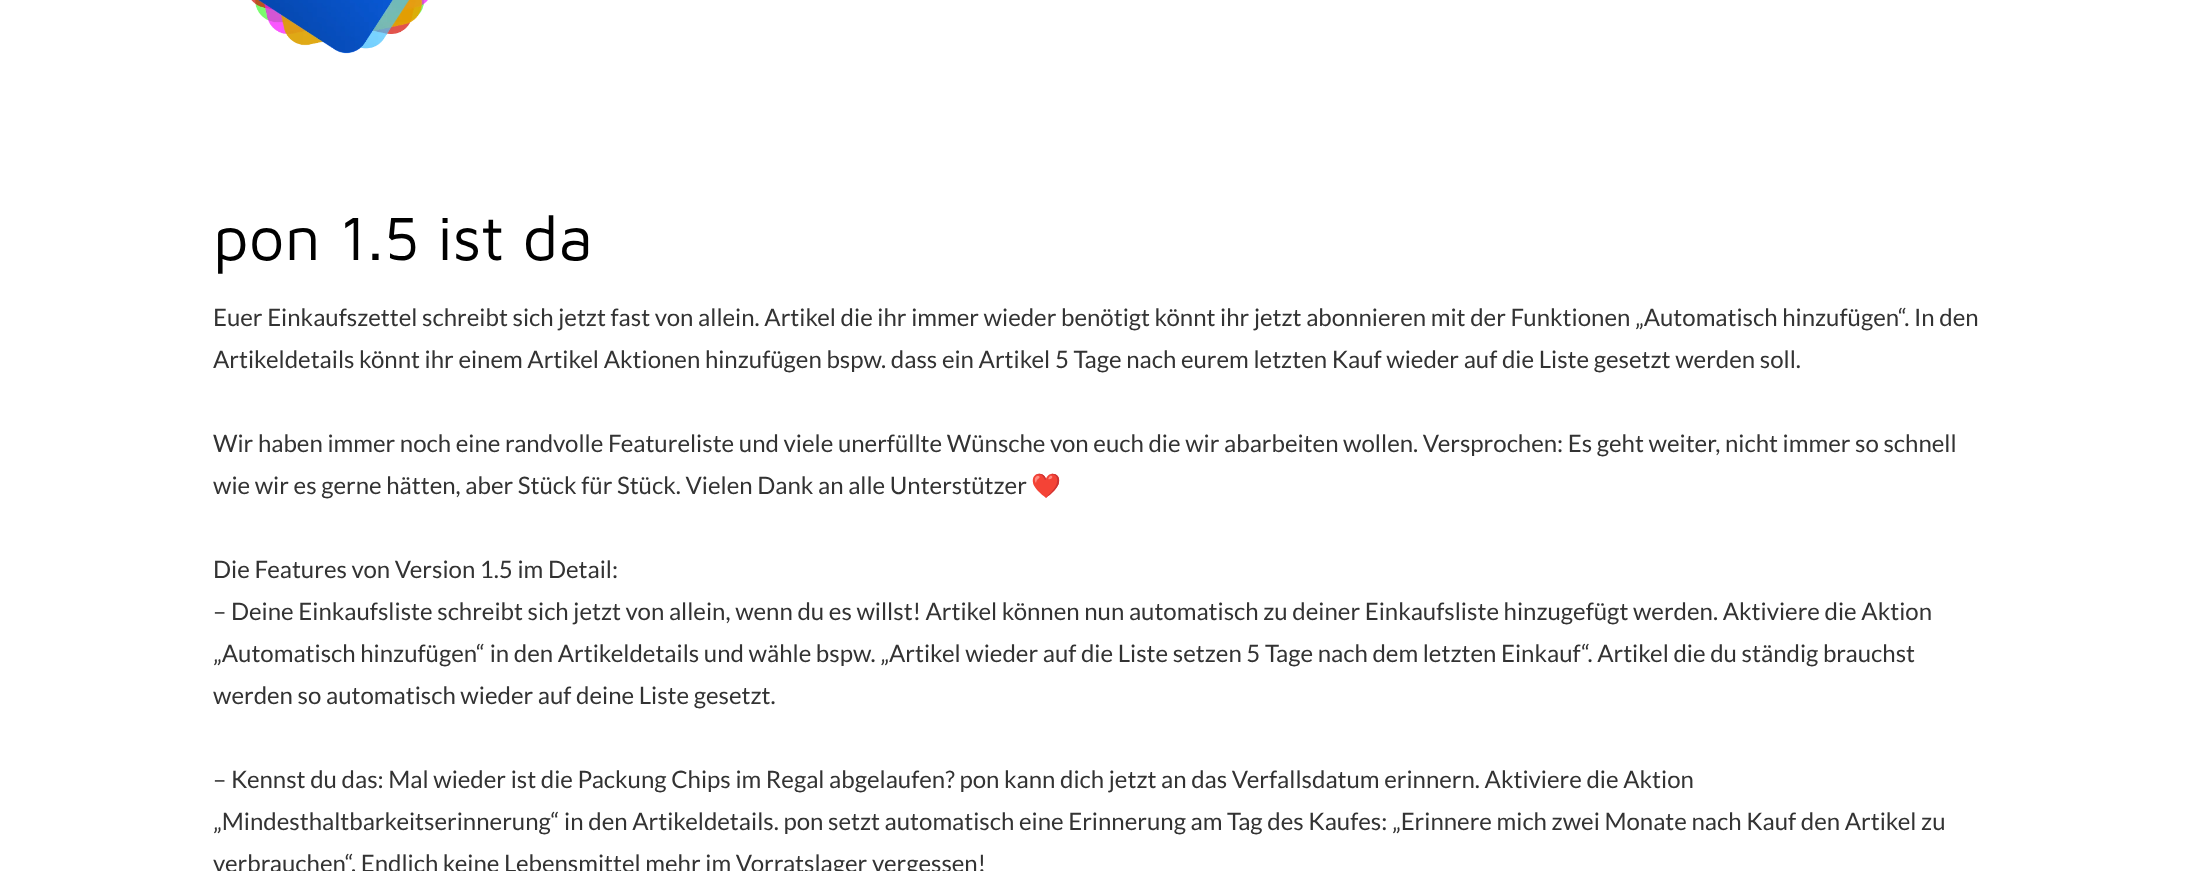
<?xml version="1.0" encoding="UTF-8"?>
<svg xmlns="http://www.w3.org/2000/svg" xmlns:xlink="http://www.w3.org/1999/xlink" width="2196" height="871">
  <rect width="100%" height="100%" fill="#ffffff" />
  <image x="251" y="0" width="177" height="54" xlink:href="image1.png" />
  <text x="213" y="260" style="font-family: Maven Pro; font-size: 63px; fill: #000000">pon 1.5 ist da</text>
  <text x="213" y="326" style="font-family: Lato; font-size: 24px; fill: #333333">Euer Einkaufszettel schreibt sich jetzt fast von allein. Artikel die ihr immer wieder benötigt könnt ihr jetzt abonnieren mit der Funktionen „Automatisch hinzufügen“. In den</text>
  <text x="213" y="368" style="font-family: Lato; font-size: 24px; fill: #333333">Artikeldetails könnt ihr einem Artikel Aktionen hinzufügen bspw. dass ein Artikel 5 Tage nach eurem letzten Kauf wieder auf die Liste gesetzt werden soll.</text>
  <text x="213" y="452" style="font-family: Lato; font-size: 24px; fill: #333333">Wir haben immer noch eine randvolle Featureliste und viele unerfüllte Wünsche von euch die wir abarbeiten wollen. Versprochen: Es geht weiter, nicht immer so schnell</text>
  <text x="213" y="494" style="font-family: Lato; font-size: 24px; fill: #333333">wie wir es gerne hätten, aber Stück für Stück. Vielen Dank an alle Unterstützer</text>
  <text x="1031" y="494" style="font-family: Noto Color Emoji; font-size: 24px; fill: #333333">❤️</text>
  <text x="213" y="578" style="font-family: Lato; font-size: 24px; fill: #333333">Die Features von Version 1.5 im Detail:</text>
  <text x="213" y="620" style="font-family: Lato; font-size: 24px; fill: #333333">– Deine Einkaufsliste schreibt sich jetzt von allein, wenn du es willst! Artikel können nun automatisch zu deiner Einkaufsliste hinzugefügt werden. Aktiviere die Aktion</text>
  <text x="213" y="662" style="font-family: Lato; font-size: 24px; fill: #333333">„Automatisch hinzufügen“ in den Artikeldetails und wähle bspw. „Artikel wieder auf die Liste setzen 5 Tage nach dem letzten Einkauf“. Artikel die du ständig brauchst</text>
  <text x="213" y="704" style="font-family: Lato; font-size: 24px; fill: #333333">werden so automatisch wieder auf deine Liste gesetzt.</text>
  <text x="213" y="788" style="font-family: Lato; font-size: 24px; fill: #333333">– Kennst du das: Mal wieder ist die Packung Chips im Regal abgelaufen? pon kann dich jetzt an das Verfallsdatum erinnern. Aktiviere die Aktion</text>
  <text x="213" y="830" style="font-family: Lato; font-size: 24px; fill: #333333">„Mindesthaltbarkeitserinnerung“ in den Artikeldetails. pon setzt automatisch eine Erinnerung am Tag des Kaufes: „Erinnere mich zwei Monate nach Kauf den Artikel zu</text>
  <text x="213" y="872" style="font-family: Lato; font-size: 24px; fill: #333333">verbrauchen“. Endlich keine Lebensmittel mehr im Vorratslager vergessen!</text>
</svg>
